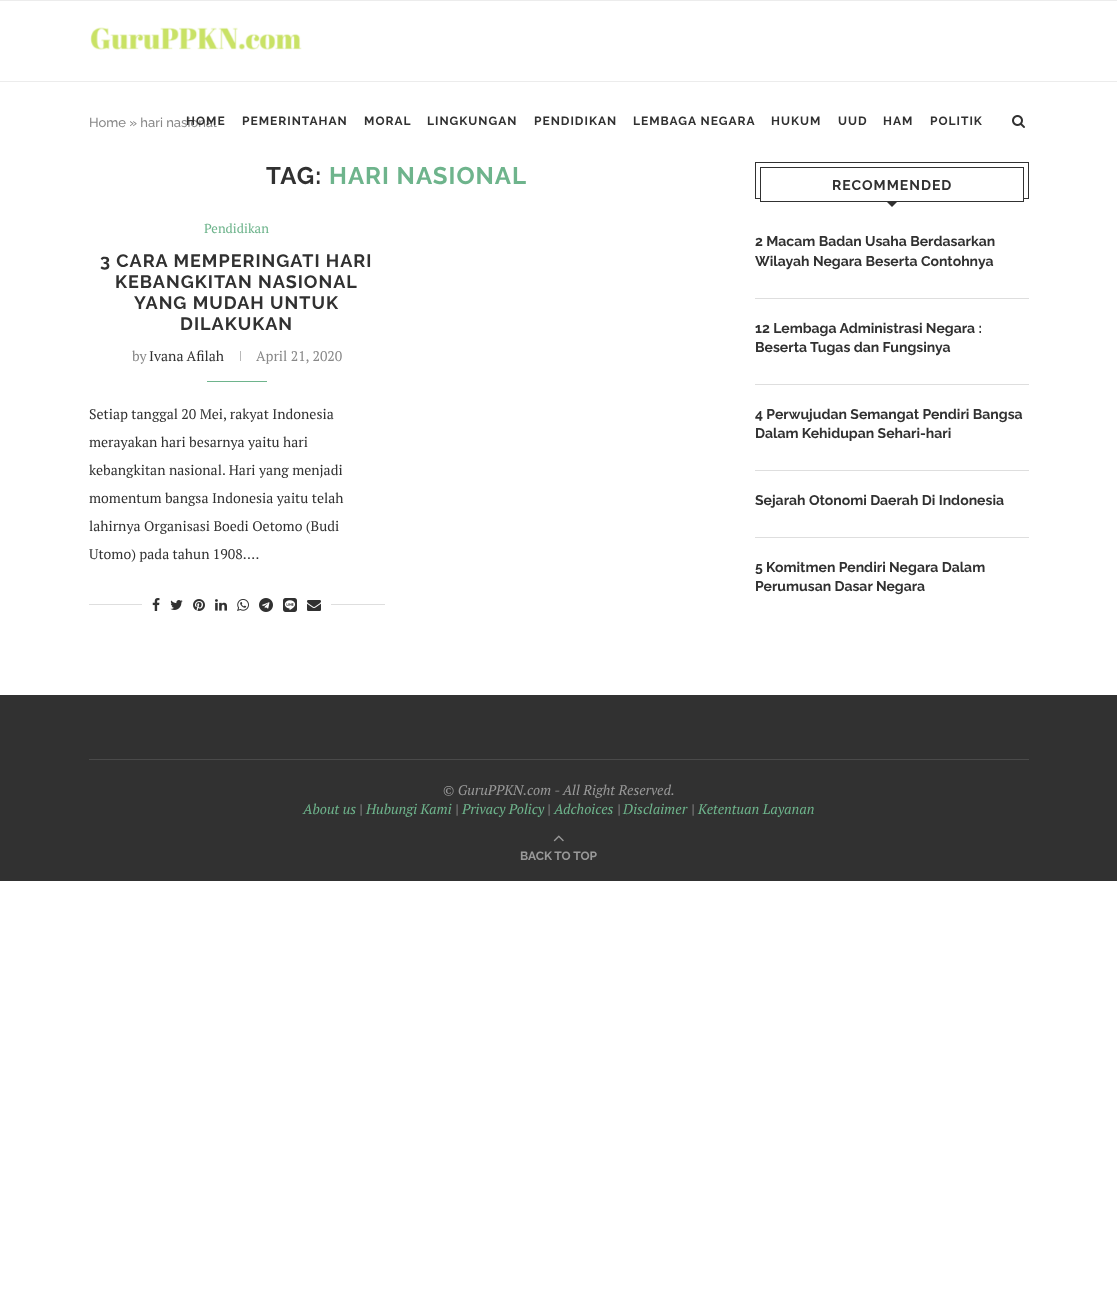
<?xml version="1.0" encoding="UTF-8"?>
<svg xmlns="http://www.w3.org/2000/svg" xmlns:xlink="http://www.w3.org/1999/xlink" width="1117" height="1290">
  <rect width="100%" height="100%" fill="#ffffff" />
  <rect width="1117" height="1" fill="#ececec" />
  <rect y="81" width="1117" height="1" fill="#ececec" />
  <image x="90" y="27" width="212" height="23" xlink:href="image1.png" />
  <image x="1012" y="115" width="13" height="13" xlink:href="image2.png" />
  <rect x="240" y="351" width="1" height="10" fill="#b8b8b8" />
  <rect x="207" y="381" width="60" height="1" fill="#6eb48c" />
  <rect x="89" y="604" width="296" height="1" fill="#dedede" />
  <rect x="142" y="604" width="189" height="1" fill="#ffffff" />
  <image x="152" y="598" width="8" height="13" xlink:href="image3.png" />
  <image x="170" y="600" width="13" height="10" xlink:href="image4.png" />
  <image x="193" y="599" width="12" height="12" xlink:href="image5.png" />
  <image x="215" y="599" width="12" height="12" xlink:href="image6.png" />
  <image x="237" y="599" width="12" height="12" xlink:href="image7.png" />
  <image x="259" y="598" width="14" height="14" xlink:href="image8.png" />
  <image x="283" y="598" width="14" height="14" xlink:href="image9.png" />
  <image x="307" y="600" width="14" height="11" xlink:href="image10.png" />
  <rect x="755.5" y="162.5" width="273" height="36" fill="none" stroke="#313131" />
  <rect x="761" y="198" width="262" height="1" fill="#ffffff" />
  <rect x="760.5" y="167.5" width="263" height="34" fill="none" stroke="#313131" />
  <path d="M 886 201 h 12 l -6 6 z" fill="#313131" />
  <rect x="755" y="298" width="274" height="1" fill="#dedede" />
  <rect x="755" y="384" width="274" height="1" fill="#dedede" />
  <rect x="755" y="470" width="274" height="1" fill="#dedede" />
  <rect x="755" y="537" width="274" height="1" fill="#dedede" />
  <rect y="695" width="1117" height="186" fill="#313131" />
  <rect x="89" y="759" width="940" height="1" fill="#4a4a4a" />
  <image x="553" y="835" width="11" height="7" xlink:href="image11.png" />
  <text x="89" y="127" style="font-family: Raleway; font-size: 13px; font-weight: 500; fill: #888888">Home » hari nasional</text>
  <text x="186" y="125" style="font-family: Raleway; font-size: 12px; font-weight: bold; letter-spacing: 1px; fill: #313131">HOME</text>
  <text x="242" y="125" style="font-family: Raleway; font-size: 12px; font-weight: bold; letter-spacing: 1px; fill: #313131">PEMERINTAHAN</text>
  <text x="364" y="125" style="font-family: Raleway; font-size: 12px; font-weight: bold; letter-spacing: 1px; fill: #313131">MORAL</text>
  <text x="427" y="125" style="font-family: Raleway; font-size: 12px; font-weight: bold; letter-spacing: 1px; fill: #313131">LINGKUNGAN</text>
  <text x="534" y="125" style="font-family: Raleway; font-size: 12px; font-weight: bold; letter-spacing: 1px; fill: #313131">PENDIDIKAN</text>
  <text x="633" y="125" style="font-family: Raleway; font-size: 12px; font-weight: bold; letter-spacing: 1px; fill: #313131">LEMBAGA NEGARA</text>
  <text x="771" y="125" style="font-family: Raleway; font-size: 12px; font-weight: bold; letter-spacing: 1px; fill: #313131">HUKUM</text>
  <text x="838" y="125" style="font-family: Raleway; font-size: 12px; font-weight: bold; letter-spacing: 1px; fill: #313131">UUD</text>
  <text x="883" y="125" style="font-family: Raleway; font-size: 12px; font-weight: bold; letter-spacing: 1px; fill: #313131">HAM</text>
  <text x="930" y="125" style="font-family: Raleway; font-size: 12px; font-weight: bold; letter-spacing: 1px; fill: #313131">POLITIK</text>
  <text x="266" y="184" style="font-family: Raleway; font-size: 24px; font-weight: bold; letter-spacing: 1px; fill: #313131">TAG:</text>
  <text x="329" y="184" style="font-family: Raleway; font-size: 24px; font-weight: bold; letter-spacing: 1px; fill: #6eb48c">HARI NASIONAL</text>
  <text x="204" y="233" style="font-family: PT Serif; font-size: 13px; fill: #6eb48c">Pendidikan</text>
  <text x="100" y="267" style="font-family: Raleway; font-size: 18px; font-weight: bold; letter-spacing: 1px; fill: #313131">3 CARA MEMPERINGATI HARI</text>
  <text x="115" y="288" style="font-family: Raleway; font-size: 18px; font-weight: bold; letter-spacing: 1px; fill: #313131">KEBANGKITAN NASIONAL</text>
  <text x="134" y="309" style="font-family: Raleway; font-size: 18px; font-weight: bold; letter-spacing: 1px; fill: #313131">YANG MUDAH UNTUK</text>
  <text x="180" y="330" style="font-family: Raleway; font-size: 18px; font-weight: bold; letter-spacing: 1px; fill: #313131">DILAKUKAN</text>
  <text x="132" y="361" style="font-family: PT Serif; font-size: 14px; fill: #888888">by</text>
  <text x="149" y="361" style="font-family: PT Serif; font-size: 14px; fill: #313131">Ivana Afilah</text>
  <text x="256" y="361" style="font-family: PT Serif; font-size: 14px; fill: #888888">April 21, 2020</text>
  <text x="89" y="419" style="font-family: PT Serif; font-size: 14px; fill: #313131">Setiap tanggal 20 Mei, rakyat Indonesia</text>
  <text x="89" y="447" style="font-family: PT Serif; font-size: 14px; fill: #313131">merayakan hari besarnya yaitu hari</text>
  <text x="89" y="475" style="font-family: PT Serif; font-size: 14px; fill: #313131">kebangkitan nasional. Hari yang menjadi</text>
  <text x="89" y="503" style="font-family: PT Serif; font-size: 14px; fill: #313131">momentum bangsa Indonesia yaitu telah</text>
  <text x="89" y="531" style="font-family: PT Serif; font-size: 14px; fill: #313131">lahirnya Organisasi Boedi Oetomo (Budi</text>
  <text x="89" y="559" style="font-family: PT Serif; font-size: 14px; fill: #313131">Utomo) pada tahun 1908.…</text>
  <text x="832" y="190" style="font-family: Raleway; font-size: 14px; font-weight: bold; letter-spacing: 1px; fill: #313131">RECOMMENDED</text>
  <text x="755" y="246" style="font-family: Raleway; font-size: 14px; font-weight: bold; fill: #313131">2 Macam Badan Usaha Berdasarkan</text>
  <text x="755" y="266" style="font-family: Raleway; font-size: 14px; font-weight: bold; fill: #313131">Wilayah Negara Beserta Contohnya</text>
  <text x="755" y="333" style="font-family: Raleway; font-size: 14px; font-weight: bold; fill: #313131">12 Lembaga Administrasi Negara :</text>
  <text x="755" y="352" style="font-family: Raleway; font-size: 14px; font-weight: bold; fill: #313131">Beserta Tugas dan Fungsinya</text>
  <text x="755" y="419" style="font-family: Raleway; font-size: 14px; font-weight: bold; fill: #313131">4 Perwujudan Semangat Pendiri Bangsa</text>
  <text x="755" y="438" style="font-family: Raleway; font-size: 14px; font-weight: bold; fill: #313131">Dalam Kehidupan Sehari-hari</text>
  <text x="755" y="505" style="font-family: Raleway; font-size: 14px; font-weight: bold; fill: #313131">Sejarah Otonomi Daerah Di Indonesia</text>
  <text x="755" y="572" style="font-family: Raleway; font-size: 14px; font-weight: bold; fill: #313131">5 Komitmen Pendiri Negara Dalam</text>
  <text x="755" y="591" style="font-family: Raleway; font-size: 14px; font-weight: bold; fill: #313131">Perumusan Dasar Negara</text>
  <text x="443" y="795" style="font-family: PT Serif; font-size: 14px; font-style: italic; fill: #999999">© GuruPPKN.com - All Right Reserved.</text>
  <text x="303" y="814" style="font-family: PT Serif; font-size: 14px; font-style: italic; fill: #6eb48c">About us</text>
  <text x="359" y="814" style="font-family: PT Serif; font-size: 14px; font-style: italic; fill: #999999">|</text>
  <text x="366" y="814" style="font-family: PT Serif; font-size: 14px; font-style: italic; fill: #6eb48c">Hubungi Kami</text>
  <text x="455" y="814" style="font-family: PT Serif; font-size: 14px; font-style: italic; fill: #999999">|</text>
  <text x="462" y="814" style="font-family: PT Serif; font-size: 14px; font-style: italic; fill: #6eb48c">Privacy Policy</text>
  <text x="547" y="814" style="font-family: PT Serif; font-size: 14px; font-style: italic; fill: #999999">|</text>
  <text x="554" y="814" style="font-family: PT Serif; font-size: 14px; font-style: italic; fill: #6eb48c">Adchoices</text>
  <text x="617" y="814" style="font-family: PT Serif; font-size: 14px; font-style: italic; fill: #999999">|</text>
  <text x="623" y="814" style="font-family: PT Serif; font-size: 14px; font-style: italic; fill: #6eb48c">Disclaimer</text>
  <text x="691" y="814" style="font-family: PT Serif; font-size: 14px; font-style: italic; fill: #999999">|</text>
  <text x="698" y="814" style="font-family: PT Serif; font-size: 14px; font-style: italic; fill: #6eb48c">Ketentuan Layanan</text>
  <text x="520" y="860" style="font-family: Raleway; font-size: 12px; font-weight: bold; fill: #999999">BACK TO TOP</text>
</svg>
